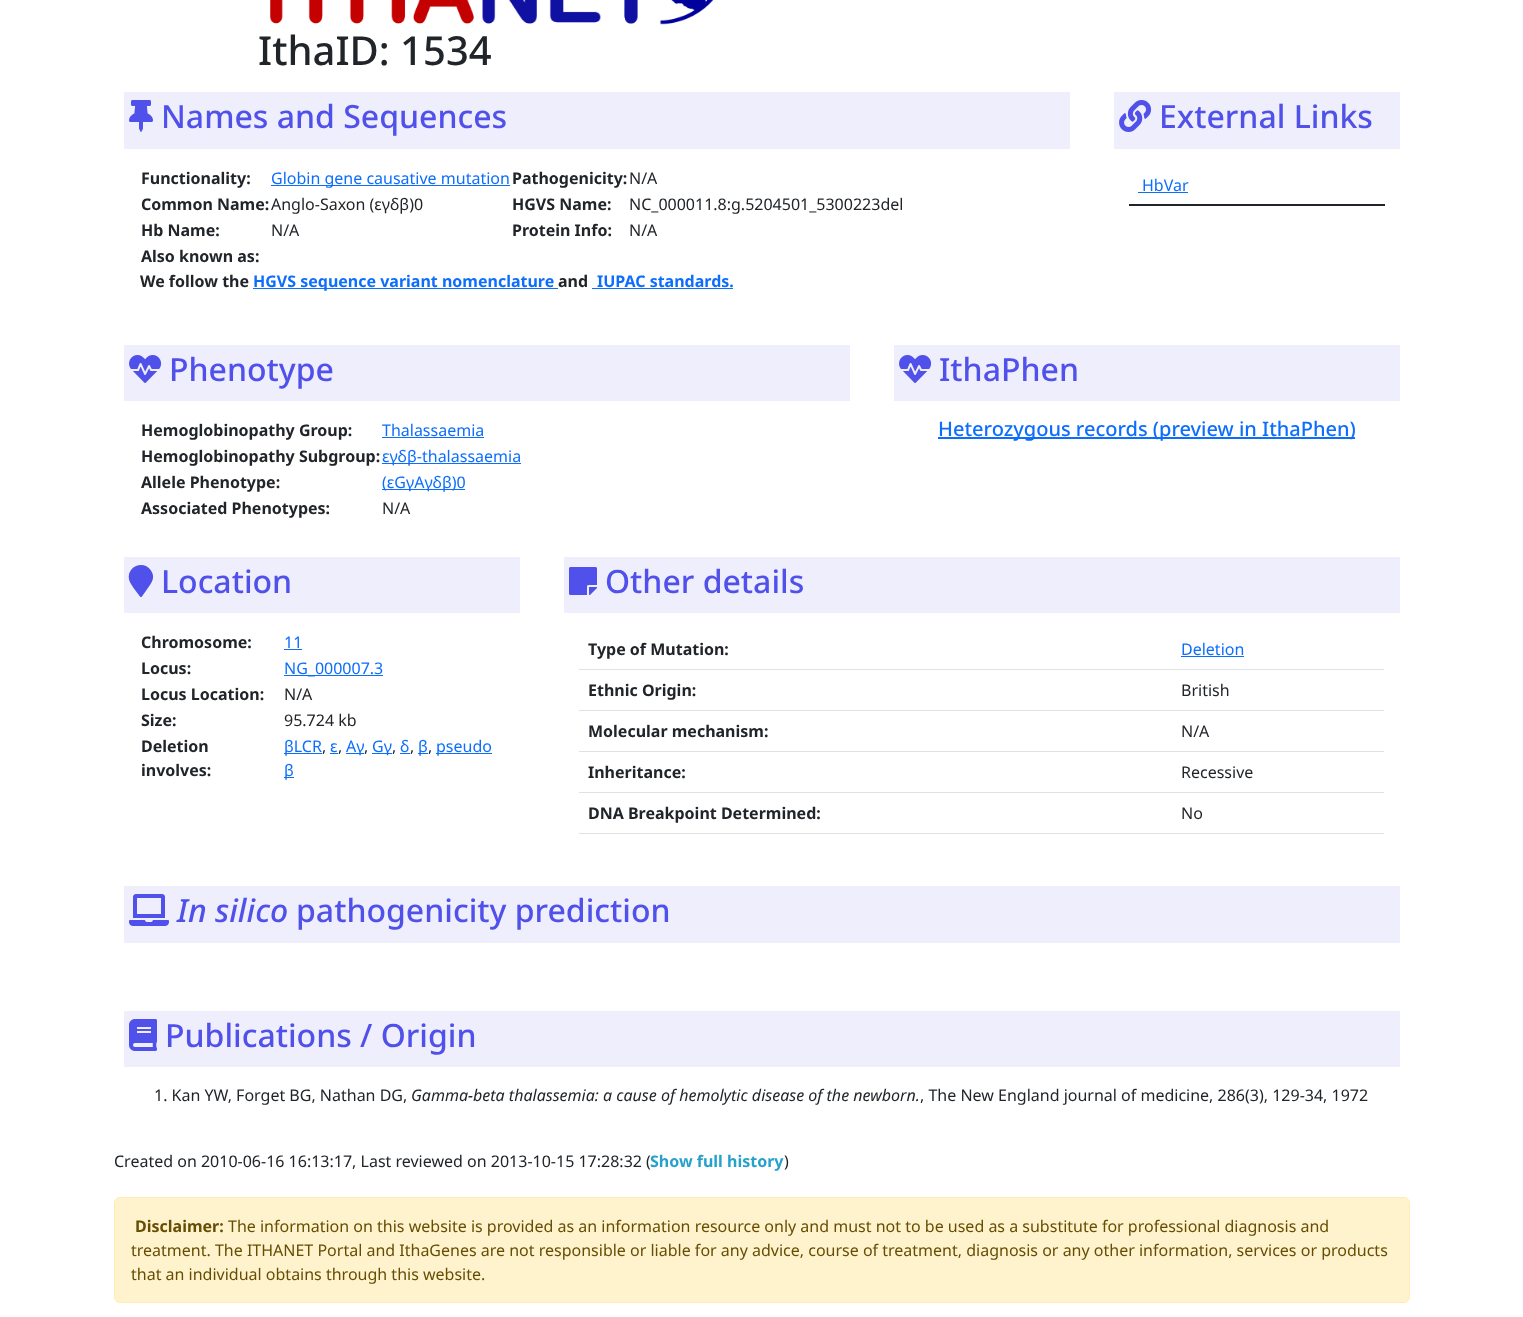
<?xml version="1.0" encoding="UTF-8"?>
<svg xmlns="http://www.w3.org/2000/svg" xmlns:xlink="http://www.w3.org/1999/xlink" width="1523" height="1317">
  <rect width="100%" height="100%" fill="#ffffff" />
  <image x="270" y="0" width="444" height="25" xlink:href="image1.png" />
  <rect x="124" y="92" width="946" height="57" fill="#eeeefd" />
  <image x="129" y="100" width="24" height="32" xlink:href="image2.png" />
  <rect x="271" y="185" width="239" height="1" fill="#0d6efd" />
  <rect x="253" y="288" width="305" height="1" fill="#0d6efd" />
  <rect x="592" y="288" width="141" height="1" fill="#0d6efd" />
  <rect x="1114" y="92" width="286" height="57" fill="#eeeefd" />
  <image x="1119" y="100" width="33" height="32" xlink:href="image3.png" />
  <rect x="1138" y="192" width="50" height="1" fill="#0d6efd" />
  <rect x="1129" y="204" width="256" height="2" fill="#212529" />
  <rect x="124" y="345" width="726" height="56" fill="#eeeefd" />
  <image x="129" y="355" width="33" height="28" xlink:href="image4.png" />
  <rect x="382" y="437" width="102" height="1" fill="#0d6efd" />
  <rect x="382" y="463" width="139" height="1" fill="#0d6efd" />
  <rect x="382" y="489" width="83" height="1" fill="#0d6efd" />
  <rect x="894" y="345" width="506" height="56" fill="#eeeefd" />
  <image x="899" y="355" width="33" height="28" xlink:href="image4.png" />
  <rect x="938" y="437" width="417" height="2" fill="#0d6efd" />
  <rect x="124" y="557" width="396" height="56" fill="#eeeefd" />
  <path d="M 140 596.5 c -3 -4 -10 -12.5 -11 -17 c -2.5 -13 14.5 -20 22 -9 c 5.5 8 -1 14.5 -5.5 21 l -4 5.5 c -0.5 0 -1.5 0 -1.5 -0.5 z" fill="#5050ea" />
  <rect x="284" y="649" width="18" height="1" fill="#0d6efd" />
  <rect x="284" y="675" width="99" height="1" fill="#0d6efd" />
  <rect x="284" y="753" width="38" height="1" fill="#0d6efd" />
  <rect x="330" y="753" width="8" height="1" fill="#0d6efd" />
  <rect x="346" y="753" width="18" height="1" fill="#0d6efd" />
  <rect x="372" y="753" width="20" height="1" fill="#0d6efd" />
  <rect x="400" y="753" width="10" height="1" fill="#0d6efd" />
  <rect x="418" y="753" width="10" height="1" fill="#0d6efd" />
  <rect x="436" y="753" width="56" height="1" fill="#0d6efd" />
  <rect x="284" y="777" width="10" height="1" fill="#0d6efd" />
  <rect x="564" y="557" width="836" height="56" fill="#eeeefd" />
  <image x="569" y="567" width="28" height="28" xlink:href="image5.png" />
  <rect x="579" y="669" width="805" height="1" fill="#dee2e6" />
  <rect x="1181" y="656" width="63" height="1" fill="#0d6efd" />
  <rect x="579" y="710" width="805" height="1" fill="#dee2e6" />
  <rect x="579" y="751" width="805" height="1" fill="#dee2e6" />
  <rect x="579" y="792" width="805" height="1" fill="#dee2e6" />
  <rect x="579" y="833" width="805" height="1" fill="#dee2e6" />
  <rect x="124" y="886" width="1276" height="57" fill="#eeeefd" />
  <image x="129" y="894" width="40" height="32" xlink:href="image6.png" />
  <rect x="124" y="1011" width="1276" height="56" fill="#eeeefd" />
  <image x="129" y="1019" width="28" height="32" xlink:href="image7.png" />
  <rect x="114.5" y="1197.5" width="1295" height="105" rx="5.5" fill="#fff3cd" stroke="#ffecb5" />
  <text x="258" y="65" style="font-family: Noto Sans; font-size: 40px; font-weight: 500; fill: #212529">IthaID: 1534</text>
  <text x="161" y="128" style="font-family: Noto Sans; font-size: 32px; font-weight: 500; fill: #5050ea">Names and Sequences</text>
  <text x="141" y="184" style="font-family: Noto Sans; font-size: 16px; font-weight: bold; fill: #212529">Functionality:</text>
  <text x="271" y="184" style="font-family: Noto Sans; font-size: 16px; fill: #0d6efd">Globin gene causative mutation</text>
  <text x="512" y="184" style="font-family: Noto Sans; font-size: 16px; font-weight: bold; fill: #212529">Pathogenicity:</text>
  <text x="629" y="184" style="font-family: Noto Sans; font-size: 16px; fill: #212529">N/A</text>
  <text x="141" y="210" style="font-family: Noto Sans; font-size: 16px; font-weight: bold; fill: #212529">Common Name:</text>
  <text x="271" y="210" style="font-family: Noto Sans; font-size: 16px; fill: #212529">Anglo-Saxon (εγδβ)0</text>
  <text x="512" y="210" style="font-family: Noto Sans; font-size: 16px; font-weight: bold; fill: #212529">HGVS Name:</text>
  <text x="629" y="210" style="font-family: Noto Sans; font-size: 16px; fill: #212529">NC_000011.8:g.5204501_5300223del</text>
  <text x="141" y="236" style="font-family: Noto Sans; font-size: 16px; font-weight: bold; fill: #212529">Hb Name:</text>
  <text x="271" y="236" style="font-family: Noto Sans; font-size: 16px; fill: #212529">N/A</text>
  <text x="512" y="236" style="font-family: Noto Sans; font-size: 16px; font-weight: bold; fill: #212529">Protein Info:</text>
  <text x="629" y="236" style="font-family: Noto Sans; font-size: 16px; fill: #212529">N/A</text>
  <text x="141" y="262" style="font-family: Noto Sans; font-size: 16px; font-weight: bold; fill: #212529">Also known as:</text>
  <text x="140" y="287" style="font-family: Noto Sans; font-size: 16px; font-weight: bold; fill: #212529">We follow the</text>
  <text x="253" y="287" style="font-family: Noto Sans; font-size: 16px; font-weight: bold; fill: #0d6efd">HGVS sequence variant nomenclature</text>
  <text x="558" y="287" style="font-family: Noto Sans; font-size: 16px; font-weight: bold; fill: #212529">and</text>
  <text x="597" y="287" style="font-family: Noto Sans; font-size: 16px; font-weight: bold; fill: #0d6efd">IUPAC standards.</text>
  <text x="1159" y="128" style="font-family: Noto Sans; font-size: 32px; font-weight: 500; fill: #5050ea">External Links</text>
  <text x="1142" y="191" style="font-family: Noto Sans; font-size: 16px; fill: #0d6efd">HbVar</text>
  <text x="169" y="381" style="font-family: Noto Sans; font-size: 32px; font-weight: 500; fill: #5050ea">Phenotype</text>
  <text x="141" y="436" style="font-family: Noto Sans; font-size: 16px; font-weight: bold; fill: #212529">Hemoglobinopathy Group:</text>
  <text x="382" y="436" style="font-family: Noto Sans; font-size: 16px; fill: #0d6efd">Thalassaemia</text>
  <text x="141" y="462" style="font-family: Noto Sans; font-size: 16px; font-weight: bold; fill: #212529">Hemoglobinopathy Subgroup:</text>
  <text x="382" y="462" style="font-family: Noto Sans; font-size: 16px; fill: #0d6efd">εγδβ-thalassaemia</text>
  <text x="141" y="488" style="font-family: Noto Sans; font-size: 16px; font-weight: bold; fill: #212529">Allele Phenotype:</text>
  <text x="382" y="488" style="font-family: Noto Sans; font-size: 16px; fill: #0d6efd">(εGγAγδβ)0</text>
  <text x="141" y="514" style="font-family: Noto Sans; font-size: 16px; font-weight: bold; fill: #212529">Associated Phenotypes:</text>
  <text x="382" y="514" style="font-family: Noto Sans; font-size: 16px; fill: #212529">N/A</text>
  <text x="939" y="381" style="font-family: Noto Sans; font-size: 32px; font-weight: 500; fill: #5050ea">IthaPhen</text>
  <text x="938" y="436" style="font-family: Noto Sans; font-size: 20px; font-weight: 500; fill: #0d6efd">Heterozygous records (preview in IthaPhen)</text>
  <text x="161" y="593" style="font-family: Noto Sans; font-size: 32px; font-weight: 500; fill: #5050ea">Location</text>
  <text x="141" y="648" style="font-family: Noto Sans; font-size: 16px; font-weight: bold; fill: #212529">Chromosome:</text>
  <text x="284" y="648" style="font-family: Noto Sans; font-size: 16px; fill: #0d6efd">11</text>
  <text x="141" y="674" style="font-family: Noto Sans; font-size: 16px; font-weight: bold; fill: #212529">Locus:</text>
  <text x="284" y="674" style="font-family: Noto Sans; font-size: 16px; fill: #0d6efd">NG_000007.3</text>
  <text x="141" y="700" style="font-family: Noto Sans; font-size: 16px; font-weight: bold; fill: #212529">Locus Location:</text>
  <text x="284" y="700" style="font-family: Noto Sans; font-size: 16px; fill: #212529">N/A</text>
  <text x="141" y="726" style="font-family: Noto Sans; font-size: 16px; font-weight: bold; fill: #212529">Size:</text>
  <text x="284" y="726" style="font-family: Noto Sans; font-size: 16px; fill: #212529">95.724 kb</text>
  <text x="141" y="752" style="font-family: Noto Sans; font-size: 16px; font-weight: bold; fill: #212529">Deletion</text>
  <text x="141" y="776" style="font-family: Noto Sans; font-size: 16px; font-weight: bold; fill: #212529">involves:</text>
  <text x="284" y="752" style="font-family: Noto Sans; font-size: 16px; fill: #0d6efd">βLCR</text>
  <text x="322" y="752" style="font-family: Noto Sans; font-size: 16px; fill: #212529">,</text>
  <text x="330" y="752" style="font-family: Noto Sans; font-size: 16px; fill: #0d6efd">ε</text>
  <text x="338" y="752" style="font-family: Noto Sans; font-size: 16px; fill: #212529">,</text>
  <text x="346" y="752" style="font-family: Noto Sans; font-size: 16px; fill: #0d6efd">Aγ</text>
  <text x="364" y="752" style="font-family: Noto Sans; font-size: 16px; fill: #212529">,</text>
  <text x="372" y="752" style="font-family: Noto Sans; font-size: 16px; fill: #0d6efd">Gγ</text>
  <text x="392" y="752" style="font-family: Noto Sans; font-size: 16px; fill: #212529">,</text>
  <text x="400" y="752" style="font-family: Noto Sans; font-size: 16px; fill: #0d6efd">δ</text>
  <text x="410" y="752" style="font-family: Noto Sans; font-size: 16px; fill: #212529">,</text>
  <text x="418" y="752" style="font-family: Noto Sans; font-size: 16px; fill: #0d6efd">β</text>
  <text x="428" y="752" style="font-family: Noto Sans; font-size: 16px; fill: #212529">,</text>
  <text x="436" y="752" style="font-family: Noto Sans; font-size: 16px; fill: #0d6efd">pseudo</text>
  <text x="284" y="776" style="font-family: Noto Sans; font-size: 16px; fill: #0d6efd">β</text>
  <text x="605" y="593" style="font-family: Noto Sans; font-size: 32px; font-weight: 500; fill: #5050ea">Other details</text>
  <text x="588" y="655" style="font-family: Noto Sans; font-size: 16px; font-weight: bold; fill: #212529">Type of Mutation:</text>
  <text x="1181" y="655" style="font-family: Noto Sans; font-size: 16px; fill: #0d6efd">Deletion</text>
  <text x="588" y="696" style="font-family: Noto Sans; font-size: 16px; font-weight: bold; fill: #212529">Ethnic Origin:</text>
  <text x="1181" y="696" style="font-family: Noto Sans; font-size: 16px; fill: #212529">British</text>
  <text x="588" y="737" style="font-family: Noto Sans; font-size: 16px; font-weight: bold; fill: #212529">Molecular mechanism:</text>
  <text x="1181" y="737" style="font-family: Noto Sans; font-size: 16px; fill: #212529">N/A</text>
  <text x="588" y="778" style="font-family: Noto Sans; font-size: 16px; font-weight: bold; fill: #212529">Inheritance:</text>
  <text x="1181" y="778" style="font-family: Noto Sans; font-size: 16px; fill: #212529">Recessive</text>
  <text x="588" y="819" style="font-family: Noto Sans; font-size: 16px; font-weight: bold; fill: #212529">DNA Breakpoint Determined:</text>
  <text x="1181" y="819" style="font-family: Noto Sans; font-size: 16px; fill: #212529">No</text>
  <text x="177" y="922" style="font-family: Noto Sans; font-size: 32px; font-weight: 500; font-style: italic; fill: #5050ea">In silico</text>
  <text x="296" y="922" style="font-family: Noto Sans; font-size: 32px; font-weight: 500; fill: #5050ea">pathogenicity prediction</text>
  <text x="165" y="1047" style="font-family: Noto Sans; font-size: 32px; font-weight: 500; fill: #5050ea">Publications / Origin</text>
  <text x="154" y="1101" style="font-family: Noto Sans; font-size: 16px; fill: #212529">1. Kan YW, Forget BG, Nathan DG,</text>
  <text x="411" y="1101" style="font-family: Noto Sans; font-size: 16px; font-style: italic; fill: #212529">Gamma-beta thalassemia: a cause of hemolytic disease of the newborn.</text>
  <text x="920" y="1101" style="font-family: Noto Sans; font-size: 16px; fill: #212529">, The New England journal of medicine, 286(3), 129-34, 1972</text>
  <text x="114" y="1167" style="font-family: Noto Sans; font-size: 16px; fill: #212529">Created on 2010-06-16 16:13:17, Last reviewed on 2013-10-15 17:28:32 (</text>
  <text x="650" y="1167" style="font-family: Noto Sans; font-size: 16px; font-weight: bold; fill: #26a1cb">Show full history</text>
  <text x="784" y="1167" style="font-family: Noto Sans; font-size: 16px; fill: #212529">)</text>
  <text x="135" y="1232" style="font-family: Noto Sans; font-size: 16px; font-weight: bold; fill: #664d03">Disclaimer:</text>
  <text x="228" y="1232" style="font-family: Noto Sans; font-size: 16px; fill: #664d03">The information on this website is provided as an information resource only and must not to be used as a substitute for professional diagnosis and</text>
  <text x="131" y="1256" style="font-family: Noto Sans; font-size: 16px; fill: #664d03">treatment. The ITHANET Portal and IthaGenes are not responsible or liable for any advice, course of treatment, diagnosis or any other information, services or products</text>
  <text x="131" y="1280" style="font-family: Noto Sans; font-size: 16px; fill: #664d03">that an individual obtains through this website.</text>
</svg>
